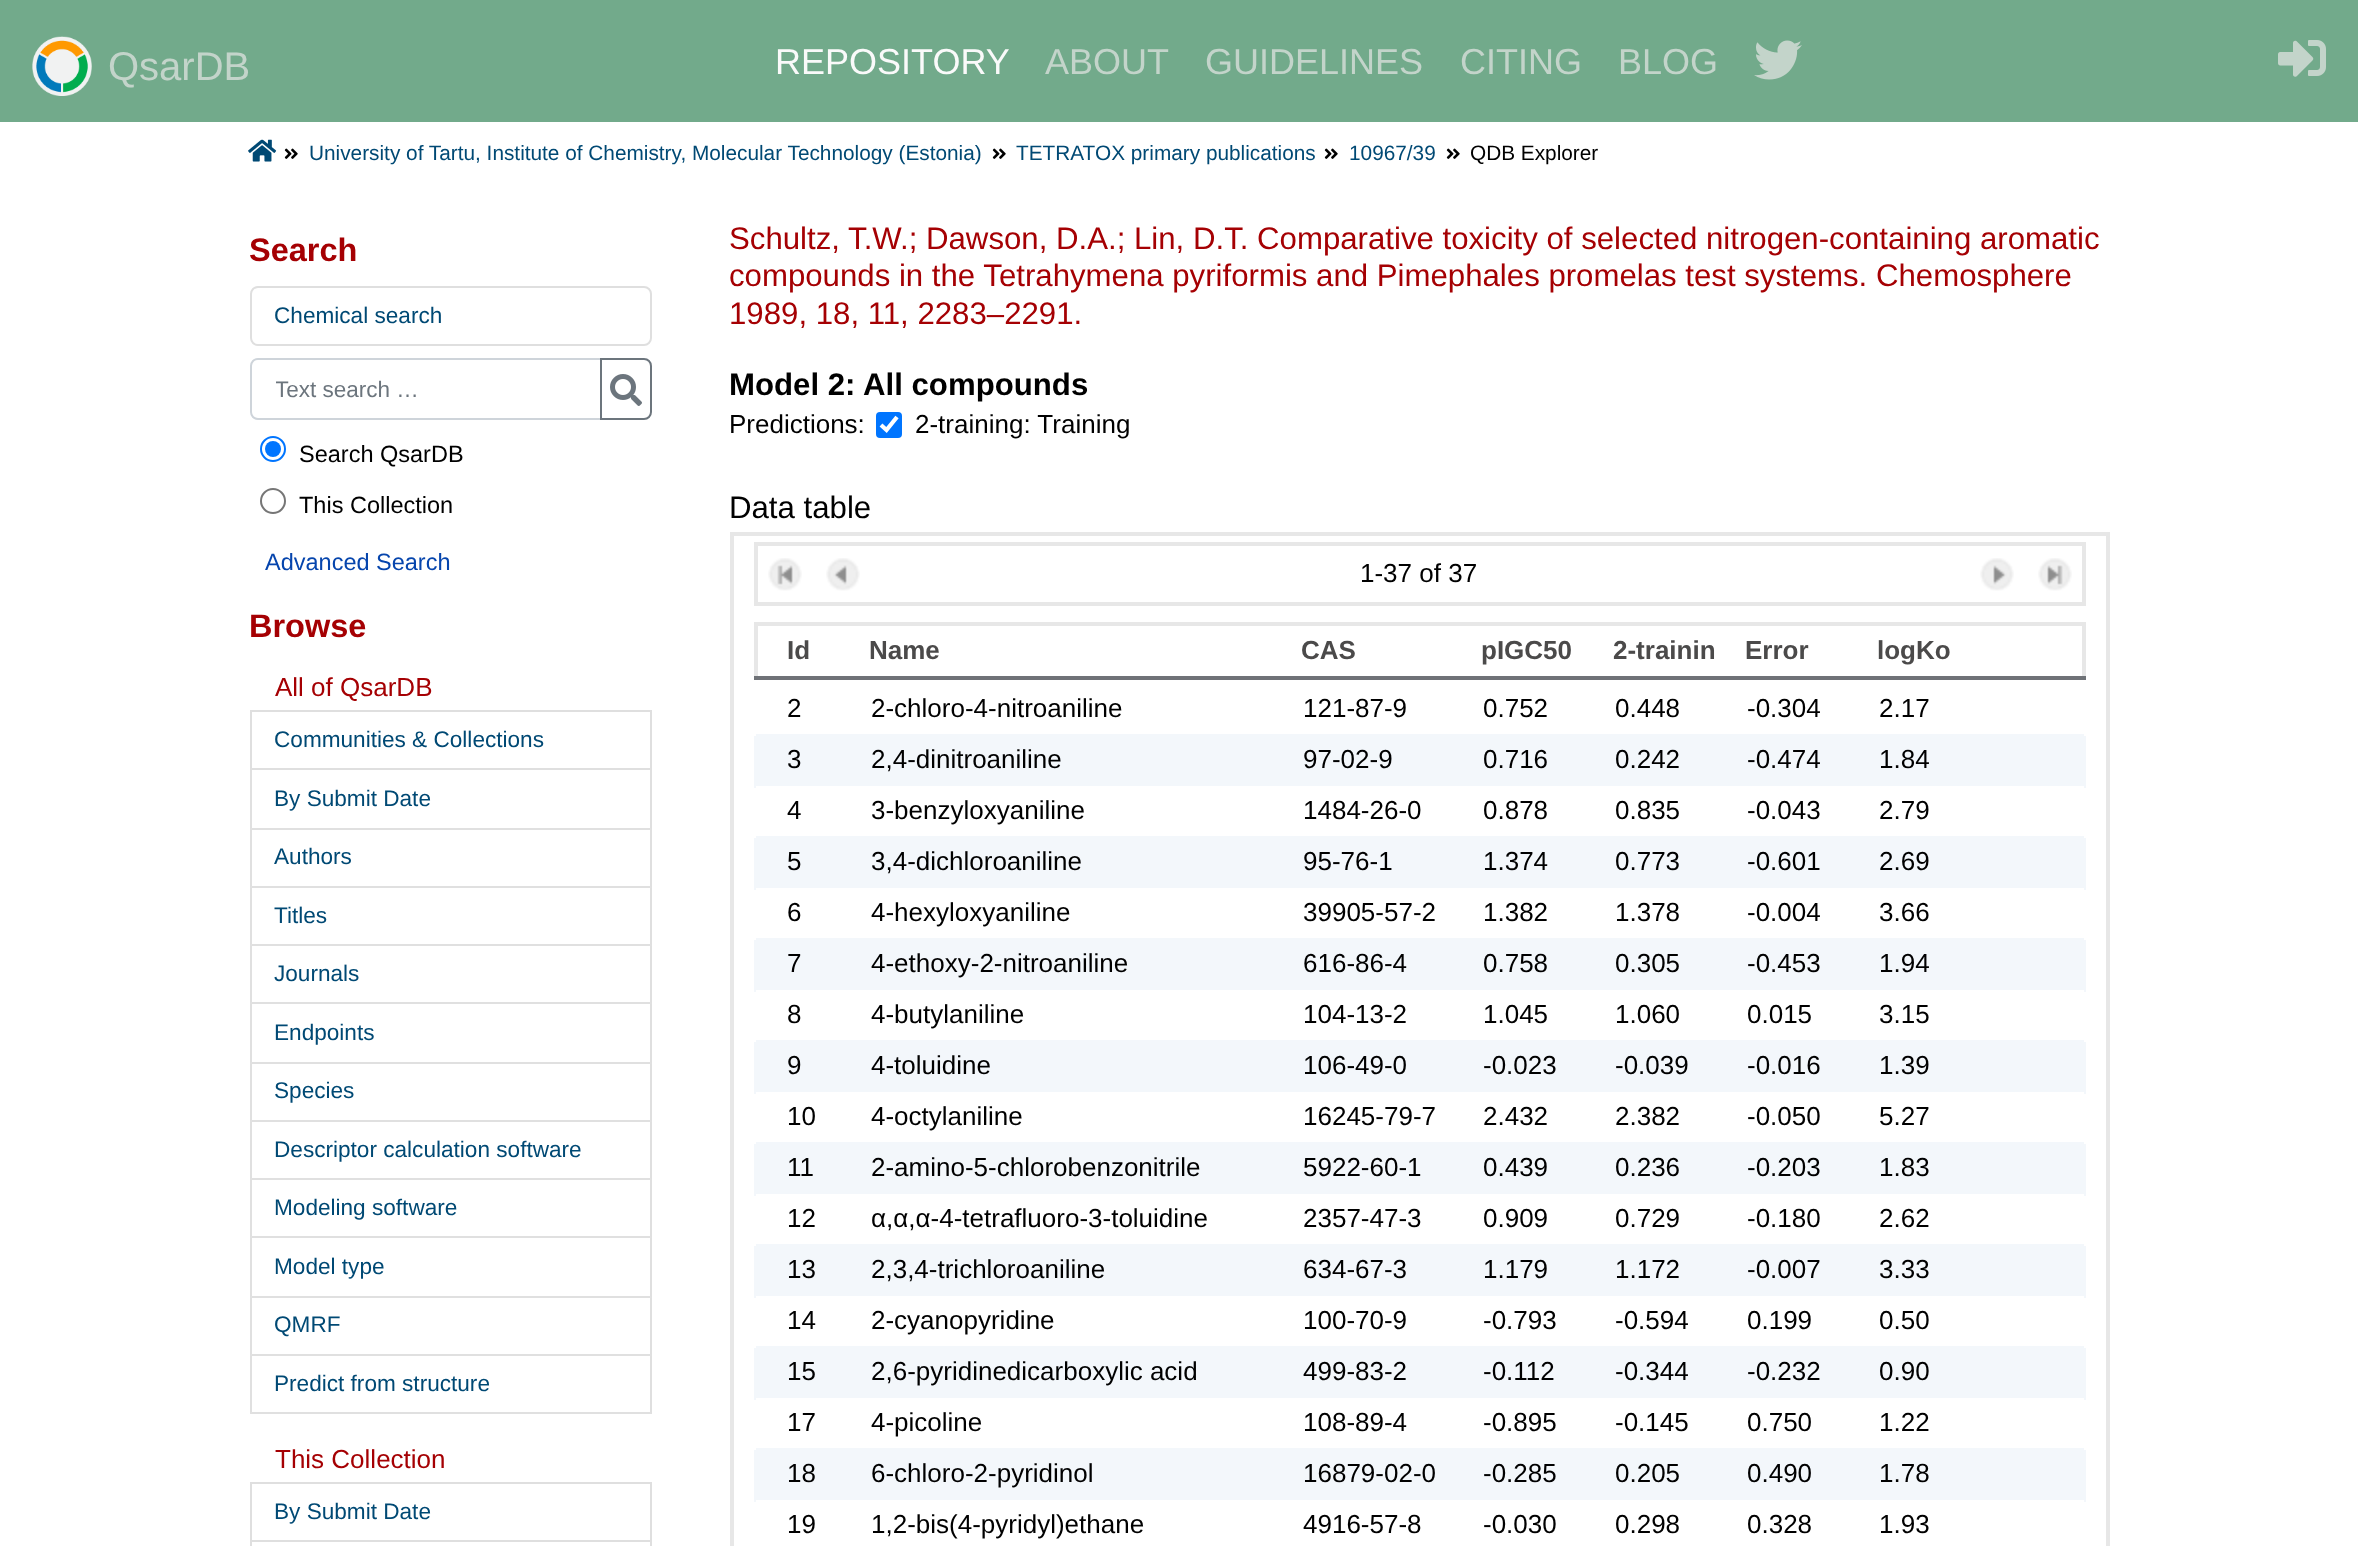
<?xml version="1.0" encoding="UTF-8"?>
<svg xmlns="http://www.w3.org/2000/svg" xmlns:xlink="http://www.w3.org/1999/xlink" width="2358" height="1546">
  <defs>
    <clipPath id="clip1"><rect x="276" y="378" width="300" height="24" /></clipPath>
  </defs>
  <rect width="100%" height="100%" fill="#ffffff" />
  <rect width="2358" height="122" fill="#72aa8b" />
  <image x="32" y="36" width="60" height="60" xlink:href="image1.png" />
  <image x="1754" y="40" width="48" height="40" xlink:href="image2.png" />
  <image x="2278" y="40" width="48" height="37" xlink:href="image3.png" />
  <image x="248" y="139" width="29" height="23" xlink:href="image4.png" />
  <image x="284" y="148" width="14" height="11" xlink:href="image5.png" />
  <image x="992" y="148" width="14" height="11" xlink:href="image5.png" />
  <image x="1324" y="148" width="14" height="11" xlink:href="image5.png" />
  <image x="1446" y="148" width="14" height="11" xlink:href="image5.png" />
  <rect x="251" y="287" width="400" height="58" rx="7" fill="none" stroke="#dfdfdf" stroke-width="2" />
  <path d="M 258 359 h 343 v 60 h -343 c -4 0 -7 -3 -7 -7 v -46 c 0 -4 3 -7 7 -7 z" fill="none" stroke="#ced4da" stroke-width="2" />
  <path d="M 601 359 h 43 c 4 0 7 3 7 7 v 46 c 0 4 -3 7 -7 7 h -43 z" fill="none" stroke="#6c757d" stroke-width="2" />
  <image x="610" y="374" width="32" height="32" xlink:href="image6.png" />
  <circle cx="273" cy="449" r="12" fill="none" stroke="#0075ff" stroke-width="2" />
  <circle cx="273" cy="449" r="8" fill="#0075ff" />
  <circle cx="273" cy="501" r="12" fill="none" stroke="#767676" stroke-width="2" />
  <rect x="251" y="711" width="400" height="58" fill="none" stroke="#dfdfdf" stroke-width="2" />
  <path d="M 652 770 v 60 l -2 -2 v -58 z" fill="#dfdfdf" />
  <path d="M 652 830 h -402 l 2 -2 h 398 z" fill="#000000" fill-opacity="0.12" />
  <path d="M 250 830 v -60 h 2 v 58 z" fill="#000000" fill-opacity="0.12" />
  <path d="M 652 830 v 58 l -2 -2 v -56 z" fill="#dfdfdf" />
  <path d="M 652 888 h -402 l 2 -2 h 398 z" fill="#000000" fill-opacity="0.12" />
  <path d="M 250 888 v -58 h 2 v 56 z" fill="#000000" fill-opacity="0.12" />
  <path d="M 652 888 v 58 l -2 -2 v -56 z" fill="#dfdfdf" />
  <path d="M 652 946 h -402 l 2 -2 h 398 z" fill="#000000" fill-opacity="0.12" />
  <path d="M 250 946 v -58 h 2 v 56 z" fill="#000000" fill-opacity="0.12" />
  <path d="M 652 946 v 58 l -2 -2 v -56 z" fill="#dfdfdf" />
  <path d="M 652 1004 h -402 l 2 -2 h 398 z" fill="#000000" fill-opacity="0.12" />
  <path d="M 250 1004 v -58 h 2 v 56 z" fill="#000000" fill-opacity="0.12" />
  <path d="M 652 1004 v 60 l -2 -2 v -58 z" fill="#dfdfdf" />
  <path d="M 652 1064 h -402 l 2 -2 h 398 z" fill="#000000" fill-opacity="0.12" />
  <path d="M 250 1064 v -60 h 2 v 58 z" fill="#000000" fill-opacity="0.12" />
  <path d="M 652 1064 v 58 l -2 -2 v -56 z" fill="#dfdfdf" />
  <path d="M 652 1122 h -402 l 2 -2 h 398 z" fill="#000000" fill-opacity="0.12" />
  <path d="M 250 1122 v -58 h 2 v 56 z" fill="#000000" fill-opacity="0.12" />
  <path d="M 652 1122 v 58 l -2 -2 v -56 z" fill="#dfdfdf" />
  <path d="M 652 1180 h -402 l 2 -2 h 398 z" fill="#000000" fill-opacity="0.12" />
  <path d="M 250 1180 v -58 h 2 v 56 z" fill="#000000" fill-opacity="0.12" />
  <path d="M 652 1180 v 58 l -2 -2 v -56 z" fill="#dfdfdf" />
  <path d="M 652 1238 h -402 l 2 -2 h 398 z" fill="#000000" fill-opacity="0.12" />
  <path d="M 250 1238 v -58 h 2 v 56 z" fill="#000000" fill-opacity="0.12" />
  <path d="M 652 1238 v 60 l -2 -2 v -58 z" fill="#dfdfdf" />
  <path d="M 652 1298 h -402 l 2 -2 h 398 z" fill="#000000" fill-opacity="0.12" />
  <path d="M 250 1298 v -60 h 2 v 58 z" fill="#000000" fill-opacity="0.12" />
  <path d="M 652 1298 v 58 l -2 -2 v -56 z" fill="#dfdfdf" />
  <path d="M 652 1356 h -402 l 2 -2 h 398 z" fill="#000000" fill-opacity="0.12" />
  <path d="M 250 1356 v -58 h 2 v 56 z" fill="#000000" fill-opacity="0.12" />
  <path d="M 652 1356 v 58 l -2 -2 v -56 z" fill="#dfdfdf" />
  <path d="M 652 1414 h -402 l 2 -2 h 398 z" fill="#000000" fill-opacity="0.12" />
  <path d="M 250 1414 v -58 h 2 v 56 z" fill="#000000" fill-opacity="0.12" />
  <rect x="251" y="1483" width="400" height="58" fill="none" stroke="#dfdfdf" stroke-width="2" />
  <path d="M 652 1542 v 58 l -2 -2 v -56 z" fill="#dfdfdf" />
  <path d="M 250 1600 v -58 h 2 v 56 z" fill="#dfdfdf" />
  <rect x="876" y="412" width="26" height="26" rx="4" fill="#0075ff" />
  <path d="M 881 425 l 5.5 5 l 10.5 -13" fill="none" stroke="#ffffff" stroke-width="4.2" />
  <rect x="730" y="532" width="1380" height="4" fill="#e7e7e7" />
  <rect x="2106" y="532" width="4" height="1014" fill="#e7e7e7" />
  <rect x="730" y="532" width="4" height="1014" fill="#e7e7e7" />
  <rect x="754" y="542" width="1332" height="4" fill="#e7e7e7" />
  <rect x="2082" y="542" width="4" height="64" fill="#e7e7e7" />
  <rect x="754" y="602" width="1332" height="4" fill="#e7e7e7" />
  <rect x="754" y="542" width="4" height="64" fill="#e7e7e7" />
  <image x="768" y="558" width="34" height="33" xlink:href="image7.png" />
  <image x="826" y="558" width="34" height="33" xlink:href="image8.png" />
  <image x="1980" y="558" width="34" height="33" xlink:href="image9.png" />
  <image x="2038" y="558" width="34" height="33" xlink:href="image10.png" />
  <rect x="754" y="622" width="1332" height="4" fill="#e7e7e7" />
  <rect x="2082" y="622" width="4" height="58" fill="#e7e7e7" />
  <rect x="754" y="622" width="4" height="58" fill="#e7e7e7" />
  <rect x="754" y="676" width="1332" height="4" fill="#6f7277" />
  <rect x="754" y="732" width="2" height="56" fill="#f3f7fb" />
  <rect x="754" y="732" width="2" height="4" fill="#ffffff" />
  <rect x="2084" y="732" width="2" height="56" fill="#f3f7fb" />
  <rect x="2084" y="732" width="2" height="4" fill="#ffffff" />
  <rect x="756" y="734" width="1328" height="52" fill="#f3f7fb" />
  <rect x="754" y="834" width="2" height="56" fill="#f3f7fb" />
  <rect x="754" y="834" width="2" height="4" fill="#ffffff" />
  <rect x="2084" y="834" width="2" height="56" fill="#f3f7fb" />
  <rect x="2084" y="834" width="2" height="4" fill="#ffffff" />
  <rect x="756" y="836" width="1328" height="52" fill="#f3f7fb" />
  <rect x="754" y="936" width="2" height="56" fill="#f3f7fb" />
  <rect x="754" y="936" width="2" height="4" fill="#ffffff" />
  <rect x="2084" y="936" width="2" height="56" fill="#f3f7fb" />
  <rect x="2084" y="936" width="2" height="4" fill="#ffffff" />
  <rect x="756" y="938" width="1328" height="52" fill="#f3f7fb" />
  <rect x="754" y="1038" width="2" height="56" fill="#f3f7fb" />
  <rect x="754" y="1038" width="2" height="4" fill="#ffffff" />
  <rect x="2084" y="1038" width="2" height="56" fill="#f3f7fb" />
  <rect x="2084" y="1038" width="2" height="4" fill="#ffffff" />
  <rect x="756" y="1040" width="1328" height="52" fill="#f3f7fb" />
  <rect x="754" y="1140" width="2" height="56" fill="#f3f7fb" />
  <rect x="754" y="1140" width="2" height="4" fill="#ffffff" />
  <rect x="2084" y="1140" width="2" height="56" fill="#f3f7fb" />
  <rect x="2084" y="1140" width="2" height="4" fill="#ffffff" />
  <rect x="756" y="1142" width="1328" height="52" fill="#f3f7fb" />
  <rect x="754" y="1242" width="2" height="56" fill="#f3f7fb" />
  <rect x="754" y="1242" width="2" height="4" fill="#ffffff" />
  <rect x="2084" y="1242" width="2" height="56" fill="#f3f7fb" />
  <rect x="2084" y="1242" width="2" height="4" fill="#ffffff" />
  <rect x="756" y="1244" width="1328" height="52" fill="#f3f7fb" />
  <rect x="754" y="1344" width="2" height="56" fill="#f3f7fb" />
  <rect x="754" y="1344" width="2" height="4" fill="#ffffff" />
  <rect x="2084" y="1344" width="2" height="56" fill="#f3f7fb" />
  <rect x="2084" y="1344" width="2" height="4" fill="#ffffff" />
  <rect x="756" y="1346" width="1328" height="52" fill="#f3f7fb" />
  <rect x="754" y="1446" width="2" height="56" fill="#f3f7fb" />
  <rect x="754" y="1446" width="2" height="4" fill="#ffffff" />
  <rect x="2084" y="1446" width="2" height="56" fill="#f3f7fb" />
  <rect x="2084" y="1446" width="2" height="4" fill="#ffffff" />
  <rect x="756" y="1448" width="1328" height="52" fill="#f3f7fb" />
  <text x="108" y="80" style="font-family: Liberation Sans; font-size: 40px; fill: #c3d4ca">QsarDB</text>
  <text x="775" y="74" style="font-family: Liberation Sans; font-size: 36px; fill: #fafafa">REPOSITORY</text>
  <text x="1045" y="74" style="font-family: Liberation Sans; font-size: 36px; fill: #c3d4ca">ABOUT</text>
  <text x="1205" y="74" style="font-family: Liberation Sans; font-size: 36px; fill: #c3d4ca">GUIDELINES</text>
  <text x="1460" y="74" style="font-family: Liberation Sans; font-size: 36px; fill: #c3d4ca">CITING</text>
  <text x="1618" y="74" style="font-family: Liberation Sans; font-size: 36px; fill: #c3d4ca">BLOG</text>
  <text x="309" y="160" style="font-family: Liberation Sans; font-size: 20.8px; fill: #004974">University of Tartu, Institute of Chemistry, Molecular Technology (Estonia)</text>
  <text x="1016" y="160" style="font-family: Liberation Sans; font-size: 20.8px; fill: #004974">TETRATOX primary publications</text>
  <text x="1349" y="160" style="font-family: Liberation Sans; font-size: 20.8px; fill: #004974">10967/39</text>
  <text x="1470" y="160" style="font-family: Liberation Sans; font-size: 20.8px; fill: #000000">QDB Explorer</text>
  <text x="249" y="261" style="font-family: Liberation Sans; font-size: 32.5px; font-weight: bold; fill: #a50003">Search</text>
  <text x="274" y="323" style="font-family: Liberation Sans; font-size: 22.6px; fill: #004974">Chemical search</text>
  <g clip-path="url(#clip1)">
    <text x="275" y="397" style="font-family: Liberation Sans; font-size: 22.5px; fill: #6c757d">Text search …</text>
  </g>
  <text x="299" y="462" style="font-family: Liberation Sans; font-size: 23.5px; fill: #000000">Search QsarDB</text>
  <text x="299" y="513" style="font-family: Liberation Sans; font-size: 23.5px; fill: #000000">This Collection</text>
  <text x="265" y="570" style="font-family: Liberation Sans; font-size: 23.5px; fill: #0645ad">Advanced Search</text>
  <text x="249" y="637" style="font-family: Liberation Sans; font-size: 32.5px; font-weight: bold; fill: #a50003">Browse</text>
  <text x="275" y="696" style="font-family: Liberation Sans; font-size: 26px; fill: #a50003">All of QsarDB</text>
  <text x="274" y="747" style="font-family: Liberation Sans; font-size: 22.6px; fill: #004974">Communities &amp; Collections</text>
  <text x="274" y="806" style="font-family: Liberation Sans; font-size: 22.6px; fill: #004974">By Submit Date</text>
  <text x="274" y="864" style="font-family: Liberation Sans; font-size: 22.6px; fill: #004974">Authors</text>
  <text x="274" y="923" style="font-family: Liberation Sans; font-size: 22.6px; fill: #004974">Titles</text>
  <text x="274" y="981" style="font-family: Liberation Sans; font-size: 22.6px; fill: #004974">Journals</text>
  <text x="274" y="1040" style="font-family: Liberation Sans; font-size: 22.6px; fill: #004974">Endpoints</text>
  <text x="274" y="1098" style="font-family: Liberation Sans; font-size: 22.6px; fill: #004974">Species</text>
  <text x="274" y="1157" style="font-family: Liberation Sans; font-size: 22.6px; fill: #004974">Descriptor calculation software</text>
  <text x="274" y="1215" style="font-family: Liberation Sans; font-size: 22.6px; fill: #004974">Modeling software</text>
  <text x="274" y="1274" style="font-family: Liberation Sans; font-size: 22.6px; fill: #004974">Model type</text>
  <text x="274" y="1332" style="font-family: Liberation Sans; font-size: 22.6px; fill: #004974">QMRF</text>
  <text x="274" y="1391" style="font-family: Liberation Sans; font-size: 22.6px; fill: #004974">Predict from structure</text>
  <text x="275" y="1468" style="font-family: Liberation Sans; font-size: 26px; fill: #a50003">This Collection</text>
  <text x="274" y="1519" style="font-family: Liberation Sans; font-size: 22.6px; fill: #004974">By Submit Date</text>
  <text x="729" y="249" style="font-family: Liberation Sans; font-size: 31.2px; fill: #a50003">Schultz, T.W.; Dawson, D.A.; Lin, D.T. Comparative toxicity of selected nitrogen-containing aromatic</text>
  <text x="729" y="286" style="font-family: Liberation Sans; font-size: 31.2px; fill: #a50003">compounds in the Tetrahymena pyriformis and Pimephales promelas test systems. Chemosphere</text>
  <text x="729" y="324" style="font-family: Liberation Sans; font-size: 31.2px; fill: #a50003">1989, 18, 11, 2283–2291.</text>
  <text x="729" y="395" style="font-family: Liberation Sans; font-size: 31.2px; font-weight: bold; fill: #000000">Model 2: All compounds</text>
  <text x="729" y="433" style="font-family: Liberation Sans; font-size: 26px; fill: #000000">Predictions:</text>
  <text x="915" y="433" style="font-family: Liberation Sans; font-size: 26px; fill: #000000">2-training: Training</text>
  <text x="729" y="518" style="font-family: Liberation Sans; font-size: 31.2px; fill: #000000">Data table</text>
  <text x="1360" y="582" style="font-family: Liberation Sans; font-size: 26px; fill: #000000">1-37 of 37</text>
  <text x="787" y="659" style="font-family: Liberation Sans; font-size: 26px; font-weight: bold; fill: #4b4a4a">Id</text>
  <text x="869" y="659" style="font-family: Liberation Sans; font-size: 26px; font-weight: bold; fill: #4b4a4a">Name</text>
  <text x="1301" y="659" style="font-family: Liberation Sans; font-size: 26px; font-weight: bold; fill: #4b4a4a">CAS</text>
  <text x="1481" y="659" style="font-family: Liberation Sans; font-size: 26px; font-weight: bold; fill: #4b4a4a">pIGC50</text>
  <text x="1613" y="659" style="font-family: Liberation Sans; font-size: 26px; font-weight: bold; fill: #4b4a4a">2-trainin</text>
  <text x="1745" y="659" style="font-family: Liberation Sans; font-size: 26px; font-weight: bold; fill: #4b4a4a">Error</text>
  <text x="1877" y="659" style="font-family: Liberation Sans; font-size: 26px; font-weight: bold; fill: #4b4a4a">logKo</text>
  <text x="787" y="717" style="font-family: Liberation Sans; font-size: 26px; fill: #000000">2</text>
  <text x="871" y="717" style="font-family: Liberation Sans; font-size: 26px; fill: #000000">2-chloro-4-nitroaniline</text>
  <text x="1303" y="717" style="font-family: Liberation Sans; font-size: 26px; fill: #000000">121-87-9</text>
  <text x="1483" y="717" style="font-family: Liberation Sans; font-size: 26px; fill: #000000">0.752</text>
  <text x="1615" y="717" style="font-family: Liberation Sans; font-size: 26px; fill: #000000">0.448</text>
  <text x="1747" y="717" style="font-family: Liberation Sans; font-size: 26px; fill: #000000">-0.304</text>
  <text x="1879" y="717" style="font-family: Liberation Sans; font-size: 26px; fill: #000000">2.17</text>
  <text x="787" y="768" style="font-family: Liberation Sans; font-size: 26px; fill: #000000">3</text>
  <text x="871" y="768" style="font-family: Liberation Sans; font-size: 26px; fill: #000000">2,4-dinitroaniline</text>
  <text x="1303" y="768" style="font-family: Liberation Sans; font-size: 26px; fill: #000000">97-02-9</text>
  <text x="1483" y="768" style="font-family: Liberation Sans; font-size: 26px; fill: #000000">0.716</text>
  <text x="1615" y="768" style="font-family: Liberation Sans; font-size: 26px; fill: #000000">0.242</text>
  <text x="1747" y="768" style="font-family: Liberation Sans; font-size: 26px; fill: #000000">-0.474</text>
  <text x="1879" y="768" style="font-family: Liberation Sans; font-size: 26px; fill: #000000">1.84</text>
  <text x="787" y="819" style="font-family: Liberation Sans; font-size: 26px; fill: #000000">4</text>
  <text x="871" y="819" style="font-family: Liberation Sans; font-size: 26px; fill: #000000">3-benzyloxyaniline</text>
  <text x="1303" y="819" style="font-family: Liberation Sans; font-size: 26px; fill: #000000">1484-26-0</text>
  <text x="1483" y="819" style="font-family: Liberation Sans; font-size: 26px; fill: #000000">0.878</text>
  <text x="1615" y="819" style="font-family: Liberation Sans; font-size: 26px; fill: #000000">0.835</text>
  <text x="1747" y="819" style="font-family: Liberation Sans; font-size: 26px; fill: #000000">-0.043</text>
  <text x="1879" y="819" style="font-family: Liberation Sans; font-size: 26px; fill: #000000">2.79</text>
  <text x="787" y="870" style="font-family: Liberation Sans; font-size: 26px; fill: #000000">5</text>
  <text x="871" y="870" style="font-family: Liberation Sans; font-size: 26px; fill: #000000">3,4-dichloroaniline</text>
  <text x="1303" y="870" style="font-family: Liberation Sans; font-size: 26px; fill: #000000">95-76-1</text>
  <text x="1483" y="870" style="font-family: Liberation Sans; font-size: 26px; fill: #000000">1.374</text>
  <text x="1615" y="870" style="font-family: Liberation Sans; font-size: 26px; fill: #000000">0.773</text>
  <text x="1747" y="870" style="font-family: Liberation Sans; font-size: 26px; fill: #000000">-0.601</text>
  <text x="1879" y="870" style="font-family: Liberation Sans; font-size: 26px; fill: #000000">2.69</text>
  <text x="787" y="921" style="font-family: Liberation Sans; font-size: 26px; fill: #000000">6</text>
  <text x="871" y="921" style="font-family: Liberation Sans; font-size: 26px; fill: #000000">4-hexyloxyaniline</text>
  <text x="1303" y="921" style="font-family: Liberation Sans; font-size: 26px; fill: #000000">39905-57-2</text>
  <text x="1483" y="921" style="font-family: Liberation Sans; font-size: 26px; fill: #000000">1.382</text>
  <text x="1615" y="921" style="font-family: Liberation Sans; font-size: 26px; fill: #000000">1.378</text>
  <text x="1747" y="921" style="font-family: Liberation Sans; font-size: 26px; fill: #000000">-0.004</text>
  <text x="1879" y="921" style="font-family: Liberation Sans; font-size: 26px; fill: #000000">3.66</text>
  <text x="787" y="972" style="font-family: Liberation Sans; font-size: 26px; fill: #000000">7</text>
  <text x="871" y="972" style="font-family: Liberation Sans; font-size: 26px; fill: #000000">4-ethoxy-2-nitroaniline</text>
  <text x="1303" y="972" style="font-family: Liberation Sans; font-size: 26px; fill: #000000">616-86-4</text>
  <text x="1483" y="972" style="font-family: Liberation Sans; font-size: 26px; fill: #000000">0.758</text>
  <text x="1615" y="972" style="font-family: Liberation Sans; font-size: 26px; fill: #000000">0.305</text>
  <text x="1747" y="972" style="font-family: Liberation Sans; font-size: 26px; fill: #000000">-0.453</text>
  <text x="1879" y="972" style="font-family: Liberation Sans; font-size: 26px; fill: #000000">1.94</text>
  <text x="787" y="1023" style="font-family: Liberation Sans; font-size: 26px; fill: #000000">8</text>
  <text x="871" y="1023" style="font-family: Liberation Sans; font-size: 26px; fill: #000000">4-butylaniline</text>
  <text x="1303" y="1023" style="font-family: Liberation Sans; font-size: 26px; fill: #000000">104-13-2</text>
  <text x="1483" y="1023" style="font-family: Liberation Sans; font-size: 26px; fill: #000000">1.045</text>
  <text x="1615" y="1023" style="font-family: Liberation Sans; font-size: 26px; fill: #000000">1.060</text>
  <text x="1747" y="1023" style="font-family: Liberation Sans; font-size: 26px; fill: #000000">0.015</text>
  <text x="1879" y="1023" style="font-family: Liberation Sans; font-size: 26px; fill: #000000">3.15</text>
  <text x="787" y="1074" style="font-family: Liberation Sans; font-size: 26px; fill: #000000">9</text>
  <text x="871" y="1074" style="font-family: Liberation Sans; font-size: 26px; fill: #000000">4-toluidine</text>
  <text x="1303" y="1074" style="font-family: Liberation Sans; font-size: 26px; fill: #000000">106-49-0</text>
  <text x="1483" y="1074" style="font-family: Liberation Sans; font-size: 26px; fill: #000000">-0.023</text>
  <text x="1615" y="1074" style="font-family: Liberation Sans; font-size: 26px; fill: #000000">-0.039</text>
  <text x="1747" y="1074" style="font-family: Liberation Sans; font-size: 26px; fill: #000000">-0.016</text>
  <text x="1879" y="1074" style="font-family: Liberation Sans; font-size: 26px; fill: #000000">1.39</text>
  <text x="787" y="1125" style="font-family: Liberation Sans; font-size: 26px; fill: #000000">10</text>
  <text x="871" y="1125" style="font-family: Liberation Sans; font-size: 26px; fill: #000000">4-octylaniline</text>
  <text x="1303" y="1125" style="font-family: Liberation Sans; font-size: 26px; fill: #000000">16245-79-7</text>
  <text x="1483" y="1125" style="font-family: Liberation Sans; font-size: 26px; fill: #000000">2.432</text>
  <text x="1615" y="1125" style="font-family: Liberation Sans; font-size: 26px; fill: #000000">2.382</text>
  <text x="1747" y="1125" style="font-family: Liberation Sans; font-size: 26px; fill: #000000">-0.050</text>
  <text x="1879" y="1125" style="font-family: Liberation Sans; font-size: 26px; fill: #000000">5.27</text>
  <text x="787" y="1176" style="font-family: Liberation Sans; font-size: 26px; fill: #000000">11</text>
  <text x="871" y="1176" style="font-family: Liberation Sans; font-size: 26px; fill: #000000">2-amino-5-chlorobenzonitrile</text>
  <text x="1303" y="1176" style="font-family: Liberation Sans; font-size: 26px; fill: #000000">5922-60-1</text>
  <text x="1483" y="1176" style="font-family: Liberation Sans; font-size: 26px; fill: #000000">0.439</text>
  <text x="1615" y="1176" style="font-family: Liberation Sans; font-size: 26px; fill: #000000">0.236</text>
  <text x="1747" y="1176" style="font-family: Liberation Sans; font-size: 26px; fill: #000000">-0.203</text>
  <text x="1879" y="1176" style="font-family: Liberation Sans; font-size: 26px; fill: #000000">1.83</text>
  <text x="787" y="1227" style="font-family: Liberation Sans; font-size: 26px; fill: #000000">12</text>
  <text x="871" y="1227" style="font-family: Liberation Sans; font-size: 26px; fill: #000000">α,α,α-4-tetrafluoro-3-toluidine</text>
  <text x="1303" y="1227" style="font-family: Liberation Sans; font-size: 26px; fill: #000000">2357-47-3</text>
  <text x="1483" y="1227" style="font-family: Liberation Sans; font-size: 26px; fill: #000000">0.909</text>
  <text x="1615" y="1227" style="font-family: Liberation Sans; font-size: 26px; fill: #000000">0.729</text>
  <text x="1747" y="1227" style="font-family: Liberation Sans; font-size: 26px; fill: #000000">-0.180</text>
  <text x="1879" y="1227" style="font-family: Liberation Sans; font-size: 26px; fill: #000000">2.62</text>
  <text x="787" y="1278" style="font-family: Liberation Sans; font-size: 26px; fill: #000000">13</text>
  <text x="871" y="1278" style="font-family: Liberation Sans; font-size: 26px; fill: #000000">2,3,4-trichloroaniline</text>
  <text x="1303" y="1278" style="font-family: Liberation Sans; font-size: 26px; fill: #000000">634-67-3</text>
  <text x="1483" y="1278" style="font-family: Liberation Sans; font-size: 26px; fill: #000000">1.179</text>
  <text x="1615" y="1278" style="font-family: Liberation Sans; font-size: 26px; fill: #000000">1.172</text>
  <text x="1747" y="1278" style="font-family: Liberation Sans; font-size: 26px; fill: #000000">-0.007</text>
  <text x="1879" y="1278" style="font-family: Liberation Sans; font-size: 26px; fill: #000000">3.33</text>
  <text x="787" y="1329" style="font-family: Liberation Sans; font-size: 26px; fill: #000000">14</text>
  <text x="871" y="1329" style="font-family: Liberation Sans; font-size: 26px; fill: #000000">2-cyanopyridine</text>
  <text x="1303" y="1329" style="font-family: Liberation Sans; font-size: 26px; fill: #000000">100-70-9</text>
  <text x="1483" y="1329" style="font-family: Liberation Sans; font-size: 26px; fill: #000000">-0.793</text>
  <text x="1615" y="1329" style="font-family: Liberation Sans; font-size: 26px; fill: #000000">-0.594</text>
  <text x="1747" y="1329" style="font-family: Liberation Sans; font-size: 26px; fill: #000000">0.199</text>
  <text x="1879" y="1329" style="font-family: Liberation Sans; font-size: 26px; fill: #000000">0.50</text>
  <text x="787" y="1380" style="font-family: Liberation Sans; font-size: 26px; fill: #000000">15</text>
  <text x="871" y="1380" style="font-family: Liberation Sans; font-size: 26px; fill: #000000">2,6-pyridinedicarboxylic acid</text>
  <text x="1303" y="1380" style="font-family: Liberation Sans; font-size: 26px; fill: #000000">499-83-2</text>
  <text x="1483" y="1380" style="font-family: Liberation Sans; font-size: 26px; fill: #000000">-0.112</text>
  <text x="1615" y="1380" style="font-family: Liberation Sans; font-size: 26px; fill: #000000">-0.344</text>
  <text x="1747" y="1380" style="font-family: Liberation Sans; font-size: 26px; fill: #000000">-0.232</text>
  <text x="1879" y="1380" style="font-family: Liberation Sans; font-size: 26px; fill: #000000">0.90</text>
  <text x="787" y="1431" style="font-family: Liberation Sans; font-size: 26px; fill: #000000">17</text>
  <text x="871" y="1431" style="font-family: Liberation Sans; font-size: 26px; fill: #000000">4-picoline</text>
  <text x="1303" y="1431" style="font-family: Liberation Sans; font-size: 26px; fill: #000000">108-89-4</text>
  <text x="1483" y="1431" style="font-family: Liberation Sans; font-size: 26px; fill: #000000">-0.895</text>
  <text x="1615" y="1431" style="font-family: Liberation Sans; font-size: 26px; fill: #000000">-0.145</text>
  <text x="1747" y="1431" style="font-family: Liberation Sans; font-size: 26px; fill: #000000">0.750</text>
  <text x="1879" y="1431" style="font-family: Liberation Sans; font-size: 26px; fill: #000000">1.22</text>
  <text x="787" y="1482" style="font-family: Liberation Sans; font-size: 26px; fill: #000000">18</text>
  <text x="871" y="1482" style="font-family: Liberation Sans; font-size: 26px; fill: #000000">6-chloro-2-pyridinol</text>
  <text x="1303" y="1482" style="font-family: Liberation Sans; font-size: 26px; fill: #000000">16879-02-0</text>
  <text x="1483" y="1482" style="font-family: Liberation Sans; font-size: 26px; fill: #000000">-0.285</text>
  <text x="1615" y="1482" style="font-family: Liberation Sans; font-size: 26px; fill: #000000">0.205</text>
  <text x="1747" y="1482" style="font-family: Liberation Sans; font-size: 26px; fill: #000000">0.490</text>
  <text x="1879" y="1482" style="font-family: Liberation Sans; font-size: 26px; fill: #000000">1.78</text>
  <text x="787" y="1533" style="font-family: Liberation Sans; font-size: 26px; fill: #000000">19</text>
  <text x="871" y="1533" style="font-family: Liberation Sans; font-size: 26px; fill: #000000">1,2-bis(4-pyridyl)ethane</text>
  <text x="1303" y="1533" style="font-family: Liberation Sans; font-size: 26px; fill: #000000">4916-57-8</text>
  <text x="1483" y="1533" style="font-family: Liberation Sans; font-size: 26px; fill: #000000">-0.030</text>
  <text x="1615" y="1533" style="font-family: Liberation Sans; font-size: 26px; fill: #000000">0.298</text>
  <text x="1747" y="1533" style="font-family: Liberation Sans; font-size: 26px; fill: #000000">0.328</text>
  <text x="1879" y="1533" style="font-family: Liberation Sans; font-size: 26px; fill: #000000">1.93</text>
</svg>
